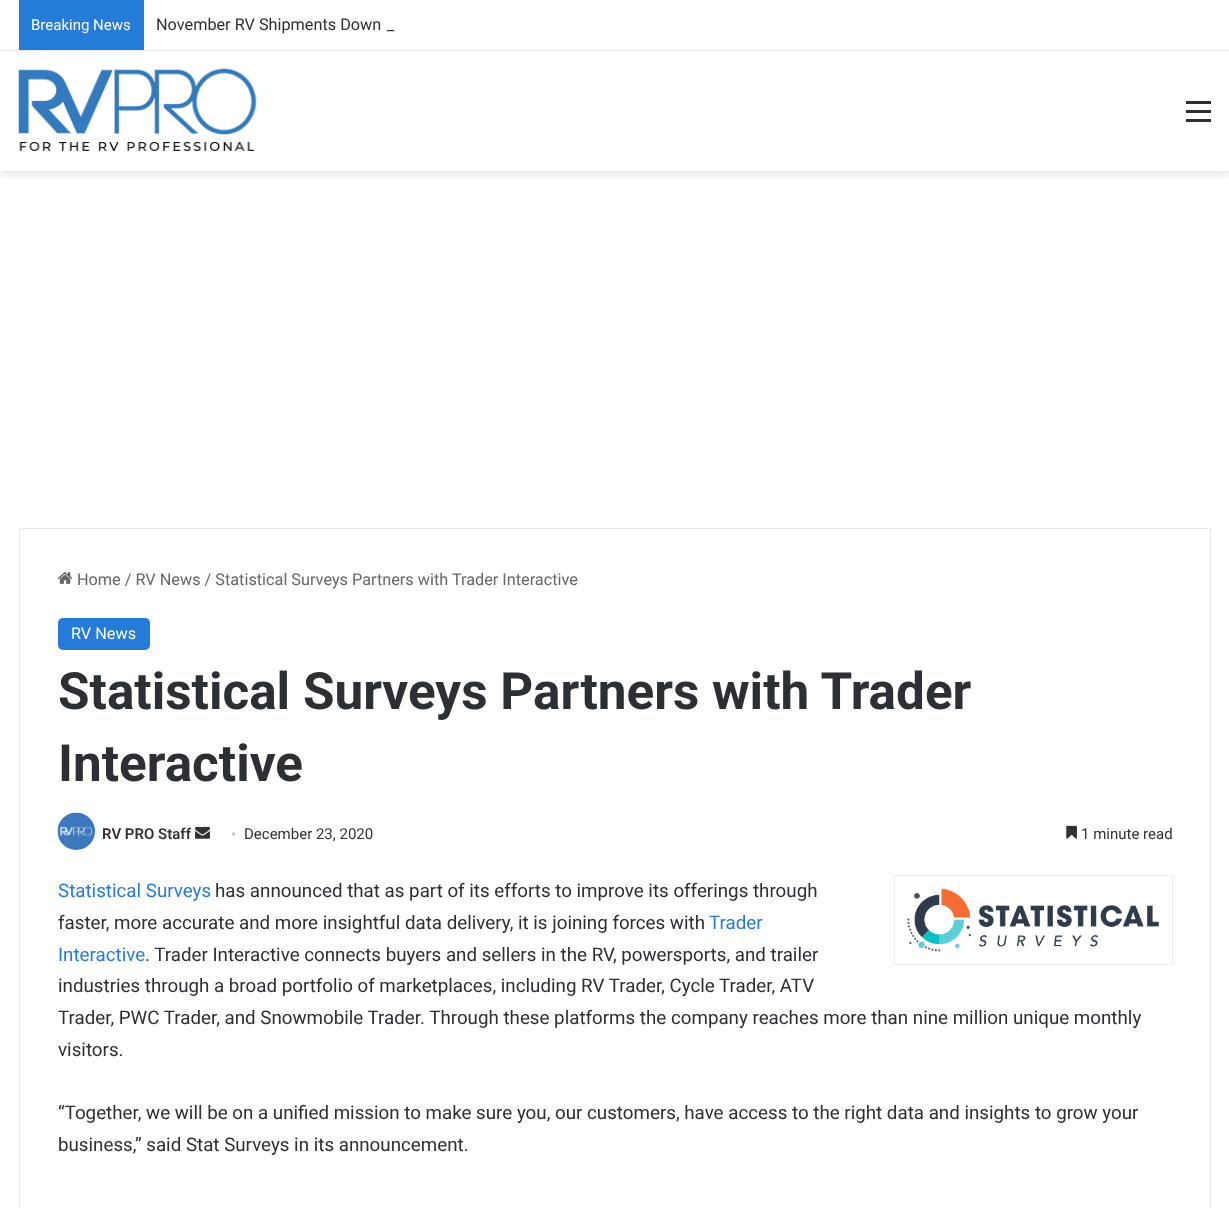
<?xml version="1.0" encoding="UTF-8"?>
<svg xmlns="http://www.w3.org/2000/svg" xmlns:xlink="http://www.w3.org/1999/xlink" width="1229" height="1208">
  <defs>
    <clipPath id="clip1"><rect x="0" y="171" width="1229" height="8" /></clipPath>
  </defs>
  <rect width="100%" height="100%" fill="#ffffff" />
  <g clip-path="url(#clip1)">
    <rect y="55" width="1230" height="120" fill="#000000" fill-opacity="0.1" filter="blur(4.5px)" />
  </g>
  <rect x="6" y="49" width="1218" height="1" fill="#ffffff" />
  <rect y="50" width="1229" height="1" fill="#e6e6e6" />
  <rect x="19" width="125" height="50" fill="#247bd8" />
  <image x="18" y="68" width="239" height="84" xlink:href="image1.png" />
  <rect x="1186" y="110" width="25" height="3" fill="#2c2f34" />
  <rect x="1186" y="101" width="25" height="3" fill="#2c2f34" />
  <rect x="1186" y="119" width="25" height="3" fill="#2c2f34" />
  <rect x="19.5" y="528.5" width="1191" height="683" rx="2" fill="none" stroke="#e6e6e6" />
  <image x="57" y="572" width="16" height="12" xlink:href="image2.png" />
  <rect x="58" y="618" width="92" height="32" rx="5" fill="#247bd8" />
  <image x="57" y="812" width="38" height="38" xlink:href="image3.png" />
  <image x="195" y="826" width="15" height="13" xlink:href="image4.png" />
  <image x="1066" y="825" width="11" height="14" xlink:href="image5.png" />
  <rect x="894.5" y="875.5" width="278" height="89" fill="none" stroke="#eeeeee" />
  <image x="907" y="888" width="252" height="64" xlink:href="image6.png" />
  <text x="31" y="30" style="font-family: Roboto; font-size: 15px; fill: #ffffff">Breaking News</text>
  <text x="156" y="30" style="font-family: Roboto; font-size: 16.25px; fill: #2c2f34">November RV Shipments Down</text>
  <text x="387" y="30" style="font-family: Roboto; font-size: 16.25px; fill: #2c2f34">_</text>
  <text x="77" y="585" style="font-family: Roboto; font-size: 16.25px; fill: #666666">Home / RV News / Statistical Surveys Partners with Trader Interactive</text>
  <text x="71" y="639" style="font-family: Roboto; font-size: 16.25px; fill: #ffffff">RV News</text>
  <text x="58" y="709" style="font-family: Roboto; font-size: 51.25px; font-weight: bold; fill: #2c2f34">Statistical Surveys Partners with Trader</text>
  <text x="58" y="781" style="font-family: Roboto; font-size: 51.25px; font-weight: bold; fill: #2c2f34">Interactive</text>
  <text x="102" y="839" style="font-family: Roboto; font-size: 15px; font-weight: 600; fill: #333333">RV PRO Staff</text>
  <text x="231" y="839" style="font-family: Liberation Serif; font-size: 15px; fill: #cccccc">•</text>
  <text x="244" y="839" style="font-family: Roboto; font-size: 15px; fill: #333333">December 23, 2020</text>
  <text x="1081" y="839" style="font-family: Roboto; font-size: 15px; fill: #333333">1 minute read</text>
  <text x="58" y="897" style="font-family: Roboto; font-size: 18.75px; fill: #247bd8">Statistical Surveys</text>
  <text x="215" y="897" style="font-family: Roboto; font-size: 18.75px; fill: #2c2f34">has announced that as part of its efforts to improve its offerings through</text>
  <text x="58" y="929" style="font-family: Roboto; font-size: 18.75px; fill: #2c2f34">faster, more accurate and more insightful data delivery, it is joining forces with</text>
  <text x="709" y="929" style="font-family: Roboto; font-size: 18.75px; fill: #247bd8">Trader</text>
  <text x="58" y="961" style="font-family: Roboto; font-size: 18.75px; fill: #247bd8">Interactive</text>
  <text x="145" y="961" style="font-family: Roboto; font-size: 18.75px; fill: #2c2f34">. Trader Interactive connects buyers and sellers in the RV, powersports, and trailer</text>
  <text x="58" y="992" style="font-family: Roboto; font-size: 18.75px; fill: #2c2f34">industries through a broad portfolio of marketplaces, including RV Trader, Cycle Trader, ATV</text>
  <text x="58" y="1024" style="font-family: Roboto; font-size: 18.75px; fill: #2c2f34">Trader, PWC Trader, and Snowmobile Trader. Through these platforms the company reaches more than nine million unique monthly</text>
  <text x="58" y="1056" style="font-family: Roboto; font-size: 18.75px; fill: #2c2f34">visitors.</text>
  <text x="58" y="1119" style="font-family: Roboto; font-size: 18.75px; fill: #2c2f34">“Together, we will be on a unified mission to make sure you, our customers, have access to the right data and insights to grow your</text>
  <text x="58" y="1151" style="font-family: Roboto; font-size: 18.75px; fill: #2c2f34">business,” said Stat Surveys in its announcement.</text>
</svg>
